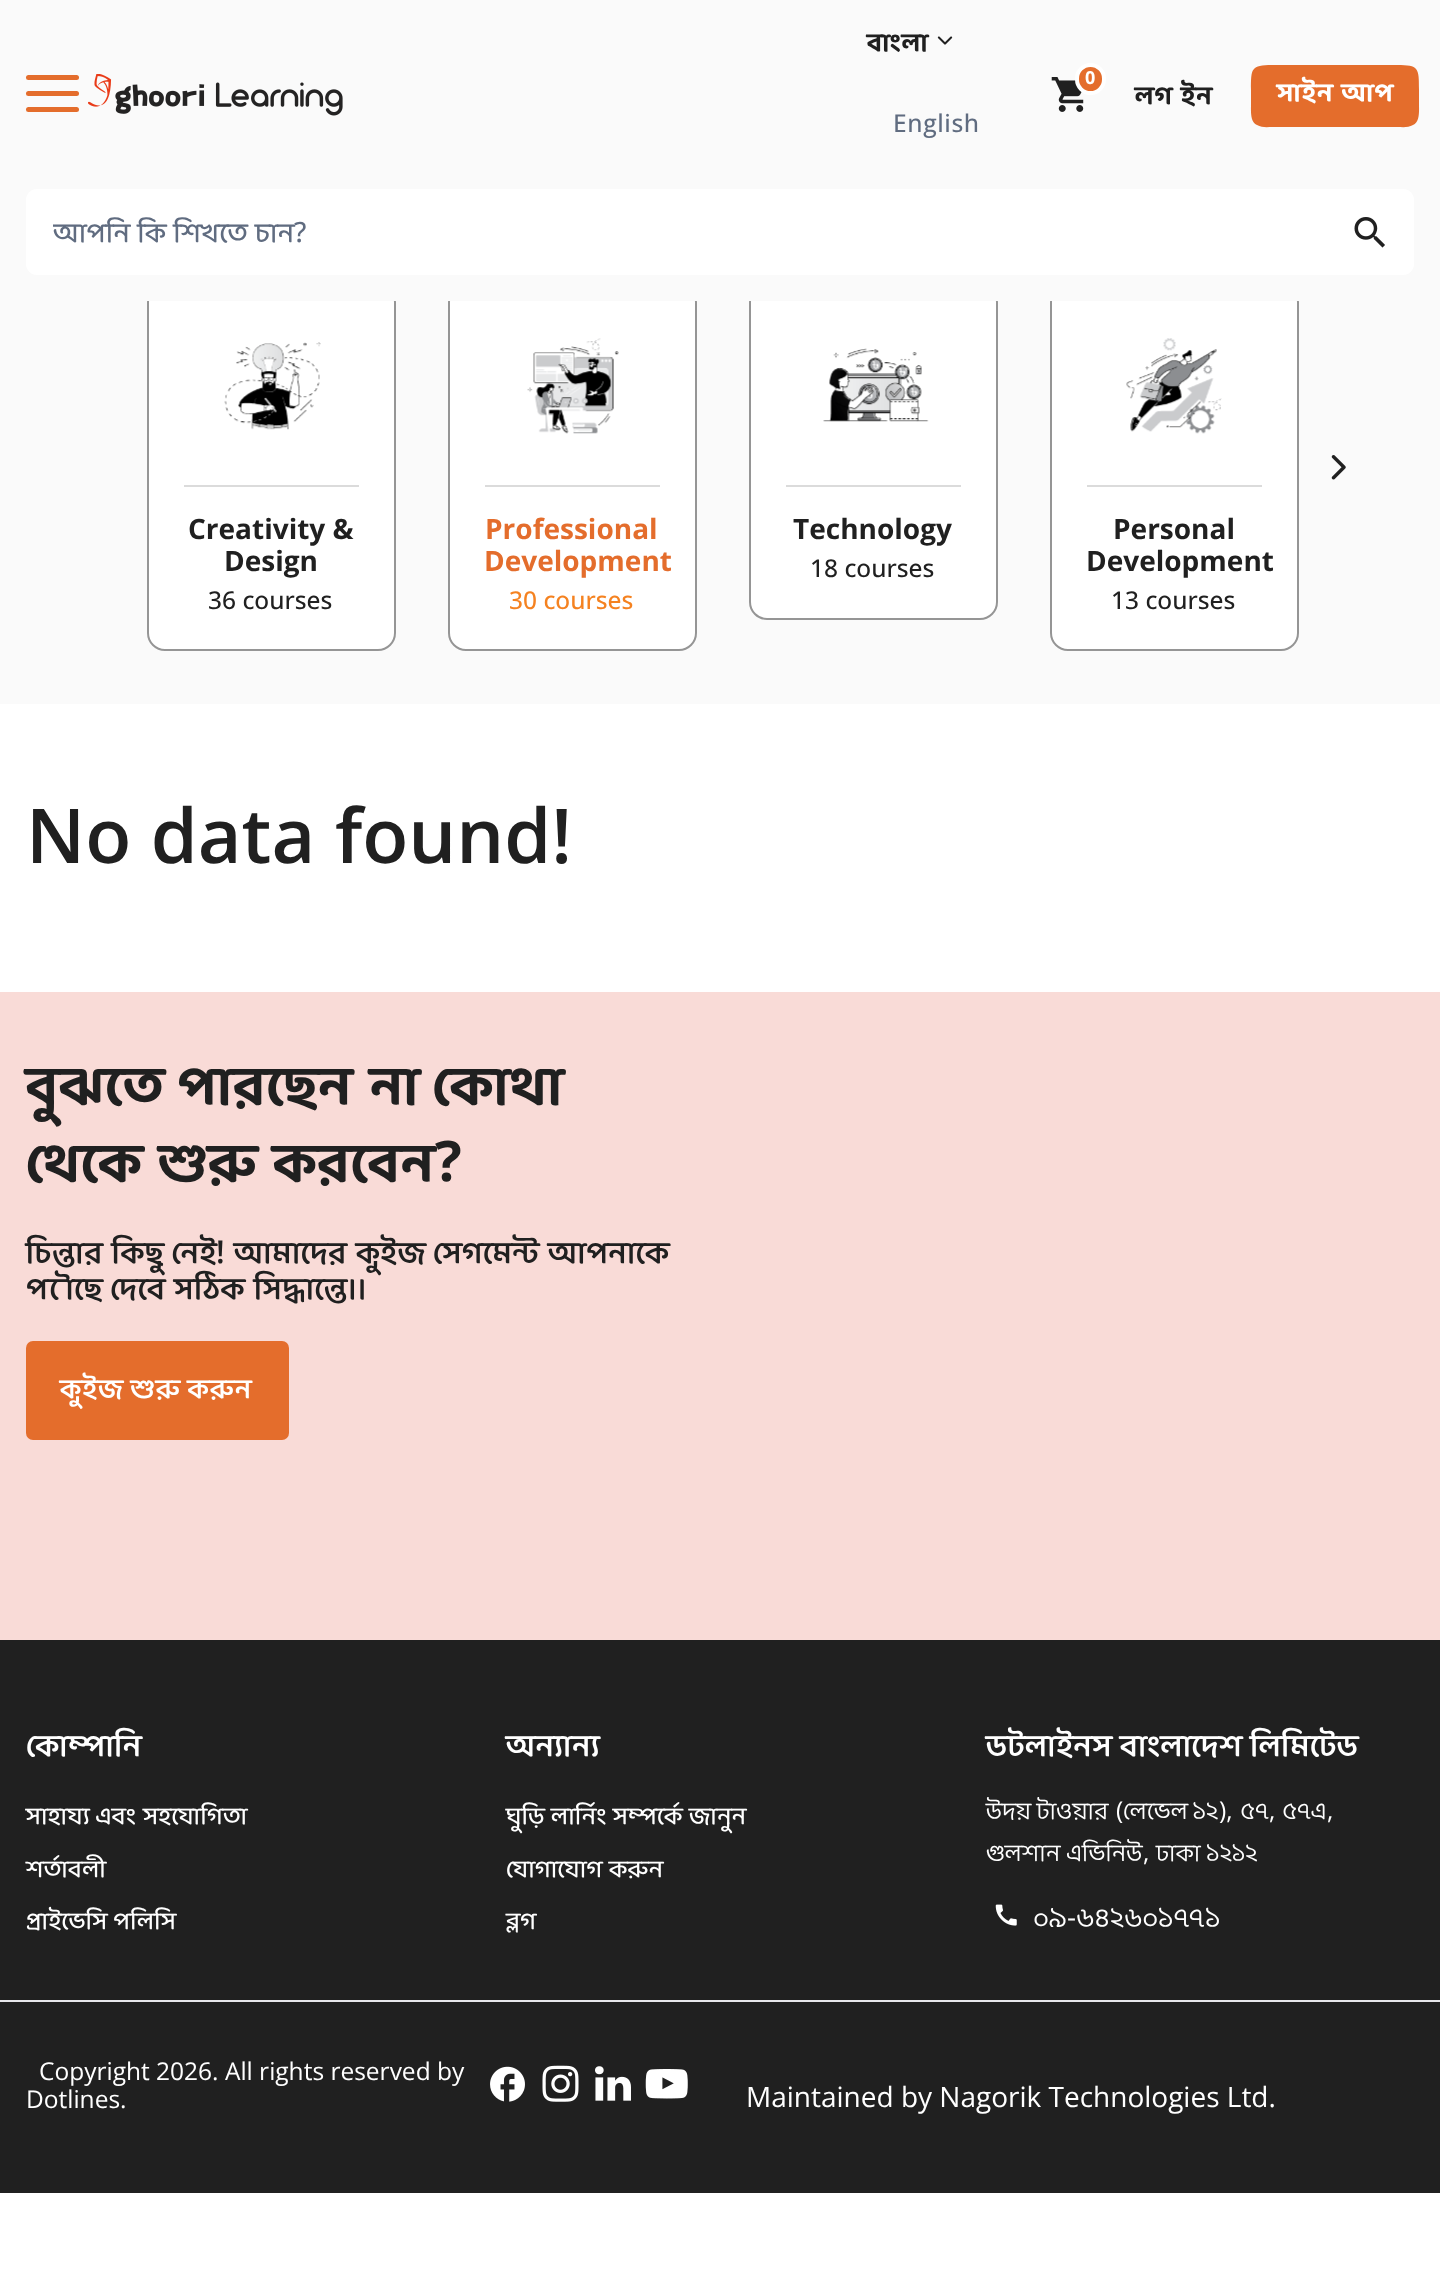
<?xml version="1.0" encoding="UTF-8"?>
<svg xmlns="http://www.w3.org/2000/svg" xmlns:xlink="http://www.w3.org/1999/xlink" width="1440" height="2269">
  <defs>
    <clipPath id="clip1"><rect x="53" y="210" width="1300" height="47" /></clipPath>
  </defs>
  <rect width="100%" height="100%" fill="#ffffff" />
  <rect y="301" width="1440" height="403" fill="#fafafa" />
  <rect x="148" y="285" width="247" height="365" rx="17" fill="#ffffff" stroke="#959595" stroke-width="2" />
  <rect x="449" y="285" width="247" height="365" rx="17" fill="#ffffff" stroke="#959595" stroke-width="2" />
  <rect x="750" y="285" width="247" height="334" rx="17" fill="#ffffff" stroke="#959595" stroke-width="2" />
  <rect x="1051" y="285" width="247" height="365" rx="17" fill="#ffffff" stroke="#959595" stroke-width="2" />
  <rect width="1440" height="301" fill="#fafafa" />
  <rect x="26" y="75" width="53" height="5" rx="2.5" fill="#e46d2c" />
  <rect x="26" y="91" width="53" height="5" rx="2.5" fill="#e46d2c" />
  <rect x="26" y="107" width="53" height="5" rx="2.5" fill="#e46d2c" />
  <image x="88" y="74" width="255" height="42" xlink:href="image1.png" />
  <image x="937" y="36" width="16" height="9" xlink:href="image2.png" />
  <image x="1051" y="77" width="33" height="35" xlink:href="image3.png" />
  <rect x="1077" y="65" width="27" height="28" rx="13.5" fill="#e46d2c" stroke="#ffffff" stroke-width="4" />
  <path d="M 1251 90 c 0 -22 0 -25 22 -25 h 124 c 22 0 22 3 22 25 v 14 c 0 7 1 18 -6 21 c -5 3 -11 2 -16 2 h -124 c -5 0 -11 1 -16 -2 c -7 -3 -6 -14 -6 -21 z" fill="#e46d2c" />
  <rect x="26" y="189" width="1388" height="86" rx="11" fill="#ffffff" />
  <image x="1354" y="217" width="31" height="31" xlink:href="image4.png" />
  <image x="1331" y="455" width="15" height="25" xlink:href="image5.png" />
  <image x="224" y="342" width="97" height="88" xlink:href="image6.png" />
  <rect x="184" y="485" width="175" height="2" fill="#dbdbdb" />
  <image x="527" y="338" width="92" height="96" xlink:href="image7.png" />
  <rect x="485" y="485" width="175" height="2" fill="#dbdbdb" />
  <image x="823" y="348" width="106" height="74" xlink:href="image8.png" />
  <rect x="786" y="485" width="175" height="2" fill="#dbdbdb" />
  <image x="1126" y="338" width="96" height="96" xlink:href="image9.png" />
  <rect x="1087" y="485" width="175" height="2" fill="#dbdbdb" />
  <rect y="992" width="1440" height="648" fill="#f9dbd7" />
  <rect x="26" y="1341" width="263" height="99" rx="7" fill="#e46d2c" />
  <rect y="1640" width="1440" height="553" fill="#202020" />
  <image x="995" y="1904" width="22" height="22" xlink:href="image10.png" />
  <rect y="2000" width="1440" height="2" fill="#e7e7eb" />
  <image x="490" y="2066" width="35" height="36" xlink:href="image11.png" />
  <image x="542" y="2065" width="37" height="37" xlink:href="image12.png" />
  <image x="595" y="2066" width="36" height="35" xlink:href="image13.png" />
  <image x="645" y="2069" width="43" height="30" xlink:href="image14.png" />
  <text x="867" y="51" style="font-family: 'Baloo Da 2'; font-size: 26.25px; font-weight: bold; letter-spacing: 0.6px; fill: #202020">বাংলা</text>
  <text x="893" y="132" style="font-family: Open Sans; font-size: 24.5px; font-weight: 500; letter-spacing: 0.6px; fill: #606c80">English</text>
  <text x="1085" y="84" style="font-family: Open Sans; font-size: 18px; font-weight: bold; letter-spacing: 0.6px; fill: #ffffff">0</text>
  <text x="1135" y="104" style="font-family: 'Baloo Da 2'; font-size: 26.25px; font-weight: bold; letter-spacing: 0.6px; fill: #202020">লগ ইন</text>
  <text x="1277" y="101" style="font-family: 'Baloo Da 2'; font-size: 26.25px; font-weight: bold; letter-spacing: 0.6px; fill: #ffffff">সাইন আপ</text>
  <g clip-path="url(#clip1)">
    <text x="53" y="242" word-spacing="0.5" style="font-family: 'Baloo Da 2'; font-size: 28px; font-weight: 500; fill: #606c80">আপনি কি শিখতে চান</text>
  </g>
  <text x="294" y="242" style="font-family: Open Sans; font-size: 28px; font-weight: 500; fill: #606c80">?</text>
  <text x="188" y="539" style="font-family: Open Sans; font-size: 28px; font-weight: bold; fill: #202020">Creativity &amp;</text>
  <text x="224" y="571" style="font-family: Open Sans; font-size: 28px; font-weight: bold; fill: #202020">Design</text>
  <text x="208" y="609" style="font-family: Open Sans; font-size: 24.5px; font-weight: 500; fill: #202020">36 courses</text>
  <text x="485" y="539" style="font-family: Open Sans; font-size: 28px; font-weight: bold; fill: #e46d2c">Professional</text>
  <text x="484" y="571" style="font-family: Open Sans; font-size: 28px; font-weight: bold; fill: #e46d2c">Development</text>
  <text x="509" y="609" style="font-family: Open Sans; font-size: 24.5px; font-weight: 500; fill: #f58220">30 courses</text>
  <text x="793" y="539" style="font-family: Open Sans; font-size: 28px; font-weight: bold; fill: #202020">Technology</text>
  <text x="810" y="577" style="font-family: Open Sans; font-size: 24.5px; font-weight: 500; fill: #202020">18 courses</text>
  <text x="1113" y="539" style="font-family: Open Sans; font-size: 28px; font-weight: bold; fill: #202020">Personal</text>
  <text x="1086" y="571" style="font-family: Open Sans; font-size: 28px; font-weight: bold; fill: #202020">Development</text>
  <text x="1111" y="609" style="font-family: Open Sans; font-size: 24.5px; font-weight: 500; fill: #202020">13 courses</text>
  <text x="26" y="863" style="font-family: Open Sans; font-size: 75.5px; font-weight: 600; fill: #202020">No data found!</text>
  <text x="26" y="1104" word-spacing="2" style="font-family: 'Baloo Da 2'; font-size: 56px; font-weight: bold; fill: #202020">বুঝতে পারছেন না কোথা</text>
  <text x="26" y="1181" style="font-family: 'Baloo Da 2'; font-size: 56px; font-weight: bold; fill: #202020">থেকে শুরু করবেন</text>
  <text x="435" y="1181" style="font-family: Open Sans; font-size: 56px; font-weight: bold; fill: #202020">?</text>
  <text x="26" y="1263" word-spacing="1" style="font-family: 'Baloo Da 2'; font-size: 31.5px; font-weight: 600; fill: #202020">চিন্তার কিছু নেই</text>
  <text x="216" y="1263" style="font-family: Open Sans; font-size: 31.5px; font-weight: 600; fill: #202020">!</text>
  <text x="234" y="1263" word-spacing="1" style="font-family: 'Baloo Da 2'; font-size: 31.5px; font-weight: 600; fill: #202020">আমাদের কুইজ সেগমেন্ট আপনাকে</text>
  <text x="26" y="1299" word-spacing="1" style="font-family: 'Baloo Da 2'; font-size: 31.5px; font-weight: 600; fill: #202020">পৌছে দেবে সঠিক সিদ্ধান্তে।।</text>
  <text x="60" y="1398" word-spacing="-1" style="font-family: 'Baloo Da 2'; font-size: 28px; font-weight: 600; letter-spacing: 0.6px; fill: #ffffff">কুইজ শুরু করুন</text>
  <text x="26" y="1756" style="font-family: 'Baloo Da 2'; font-size: 31.5px; font-weight: 600; fill: #ffffff">কোম্পানি</text>
  <text x="26" y="1824" word-spacing="1" style="font-family: 'Baloo Da 2'; font-size: 24.5px; font-weight: 500; fill: #ffffff">সাহায্য এবং সহযোগিতা</text>
  <text x="26" y="1877" style="font-family: 'Baloo Da 2'; font-size: 24.5px; font-weight: 500; fill: #ffffff">শর্তাবলী</text>
  <text x="26" y="1929" word-spacing="1" style="font-family: 'Baloo Da 2'; font-size: 24.5px; font-weight: 500; fill: #ffffff">প্রাইভেসি পলিসি</text>
  <text x="506" y="1756" style="font-family: 'Baloo Da 2'; font-size: 31.5px; font-weight: 600; fill: #ffffff">অন্যান্য</text>
  <text x="506" y="1824" word-spacing="0.5" style="font-family: 'Baloo Da 2'; font-size: 24.5px; font-weight: 500; fill: #ffffff">ঘুড়ি লার্নিং সম্পর্কে জানুন</text>
  <text x="506" y="1877" word-spacing="0.5" style="font-family: 'Baloo Da 2'; font-size: 24.5px; font-weight: 500; fill: #ffffff">যোগাযোগ করুন</text>
  <text x="506" y="1929" style="font-family: 'Baloo Da 2'; font-size: 24.5px; font-weight: 500; fill: #ffffff">ব্লগ</text>
  <text x="986" y="1756" style="font-family: 'Baloo Da 2'; font-size: 31.5px; font-weight: 600; fill: #ffffff">ডটলাইনস বাংলাদেশ লিমিটেড</text>
  <text x="986" y="1819" style="font-family: 'Baloo Da 2'; font-size: 24.5px; fill: #ffffff">উদয় টাওয়ার</text>
  <text x="1116" y="1819" style="font-family: Open Sans; font-size: 24.5px; fill: #ffffff">(</text>
  <text x="1123" y="1819" style="font-family: 'Baloo Da 2'; font-size: 24.5px; fill: #ffffff">লেভেল ১২</text>
  <text x="1219" y="1819" style="font-family: Open Sans; font-size: 24.5px; fill: #ffffff">),</text>
  <text x="1240" y="1819" style="font-family: 'Baloo Da 2'; font-size: 24.5px; fill: #ffffff">৫৭</text>
  <text x="1269" y="1819" style="font-family: Open Sans; font-size: 24.5px; fill: #ffffff">,</text>
  <text x="1282" y="1819" style="font-family: 'Baloo Da 2'; font-size: 24.5px; fill: #ffffff">৫৭এ</text>
  <text x="1327" y="1819" style="font-family: Open Sans; font-size: 24.5px; fill: #ffffff">,</text>
  <text x="986" y="1861" word-spacing="1" style="font-family: 'Baloo Da 2'; font-size: 24.5px; fill: #ffffff">গুলশান এভিনিউ</text>
  <text x="1143" y="1861" style="font-family: Open Sans; font-size: 24.5px; fill: #ffffff">,</text>
  <text x="1156" y="1861" word-spacing="1" style="font-family: 'Baloo Da 2'; font-size: 24.5px; fill: #ffffff">ঢাকা ১২১২</text>
  <text x="1033" y="1927" style="font-family: 'Baloo Da 2'; font-size: 28px; fill: #ffffff">০৯</text>
  <text x="1067" y="1927" style="font-family: Open Sans; font-size: 28px; fill: #ffffff">-</text>
  <text x="1076" y="1927" style="font-family: 'Baloo Da 2'; font-size: 28px; fill: #ffffff">৬৪২৬০১৭৭১</text>
  <text x="39" y="2080" style="font-family: Open Sans; font-size: 24.5px; fill: #ffffff">Copyright 2026. All rights reserved by</text>
  <text x="26" y="2108" style="font-family: Open Sans; font-size: 24.5px; fill: #ffffff">Dotlines.</text>
  <text x="746" y="2107" style="font-family: Open Sans; font-size: 28px; fill: #ffffff">Maintained by Nagorik Technologies Ltd.</text>
</svg>
